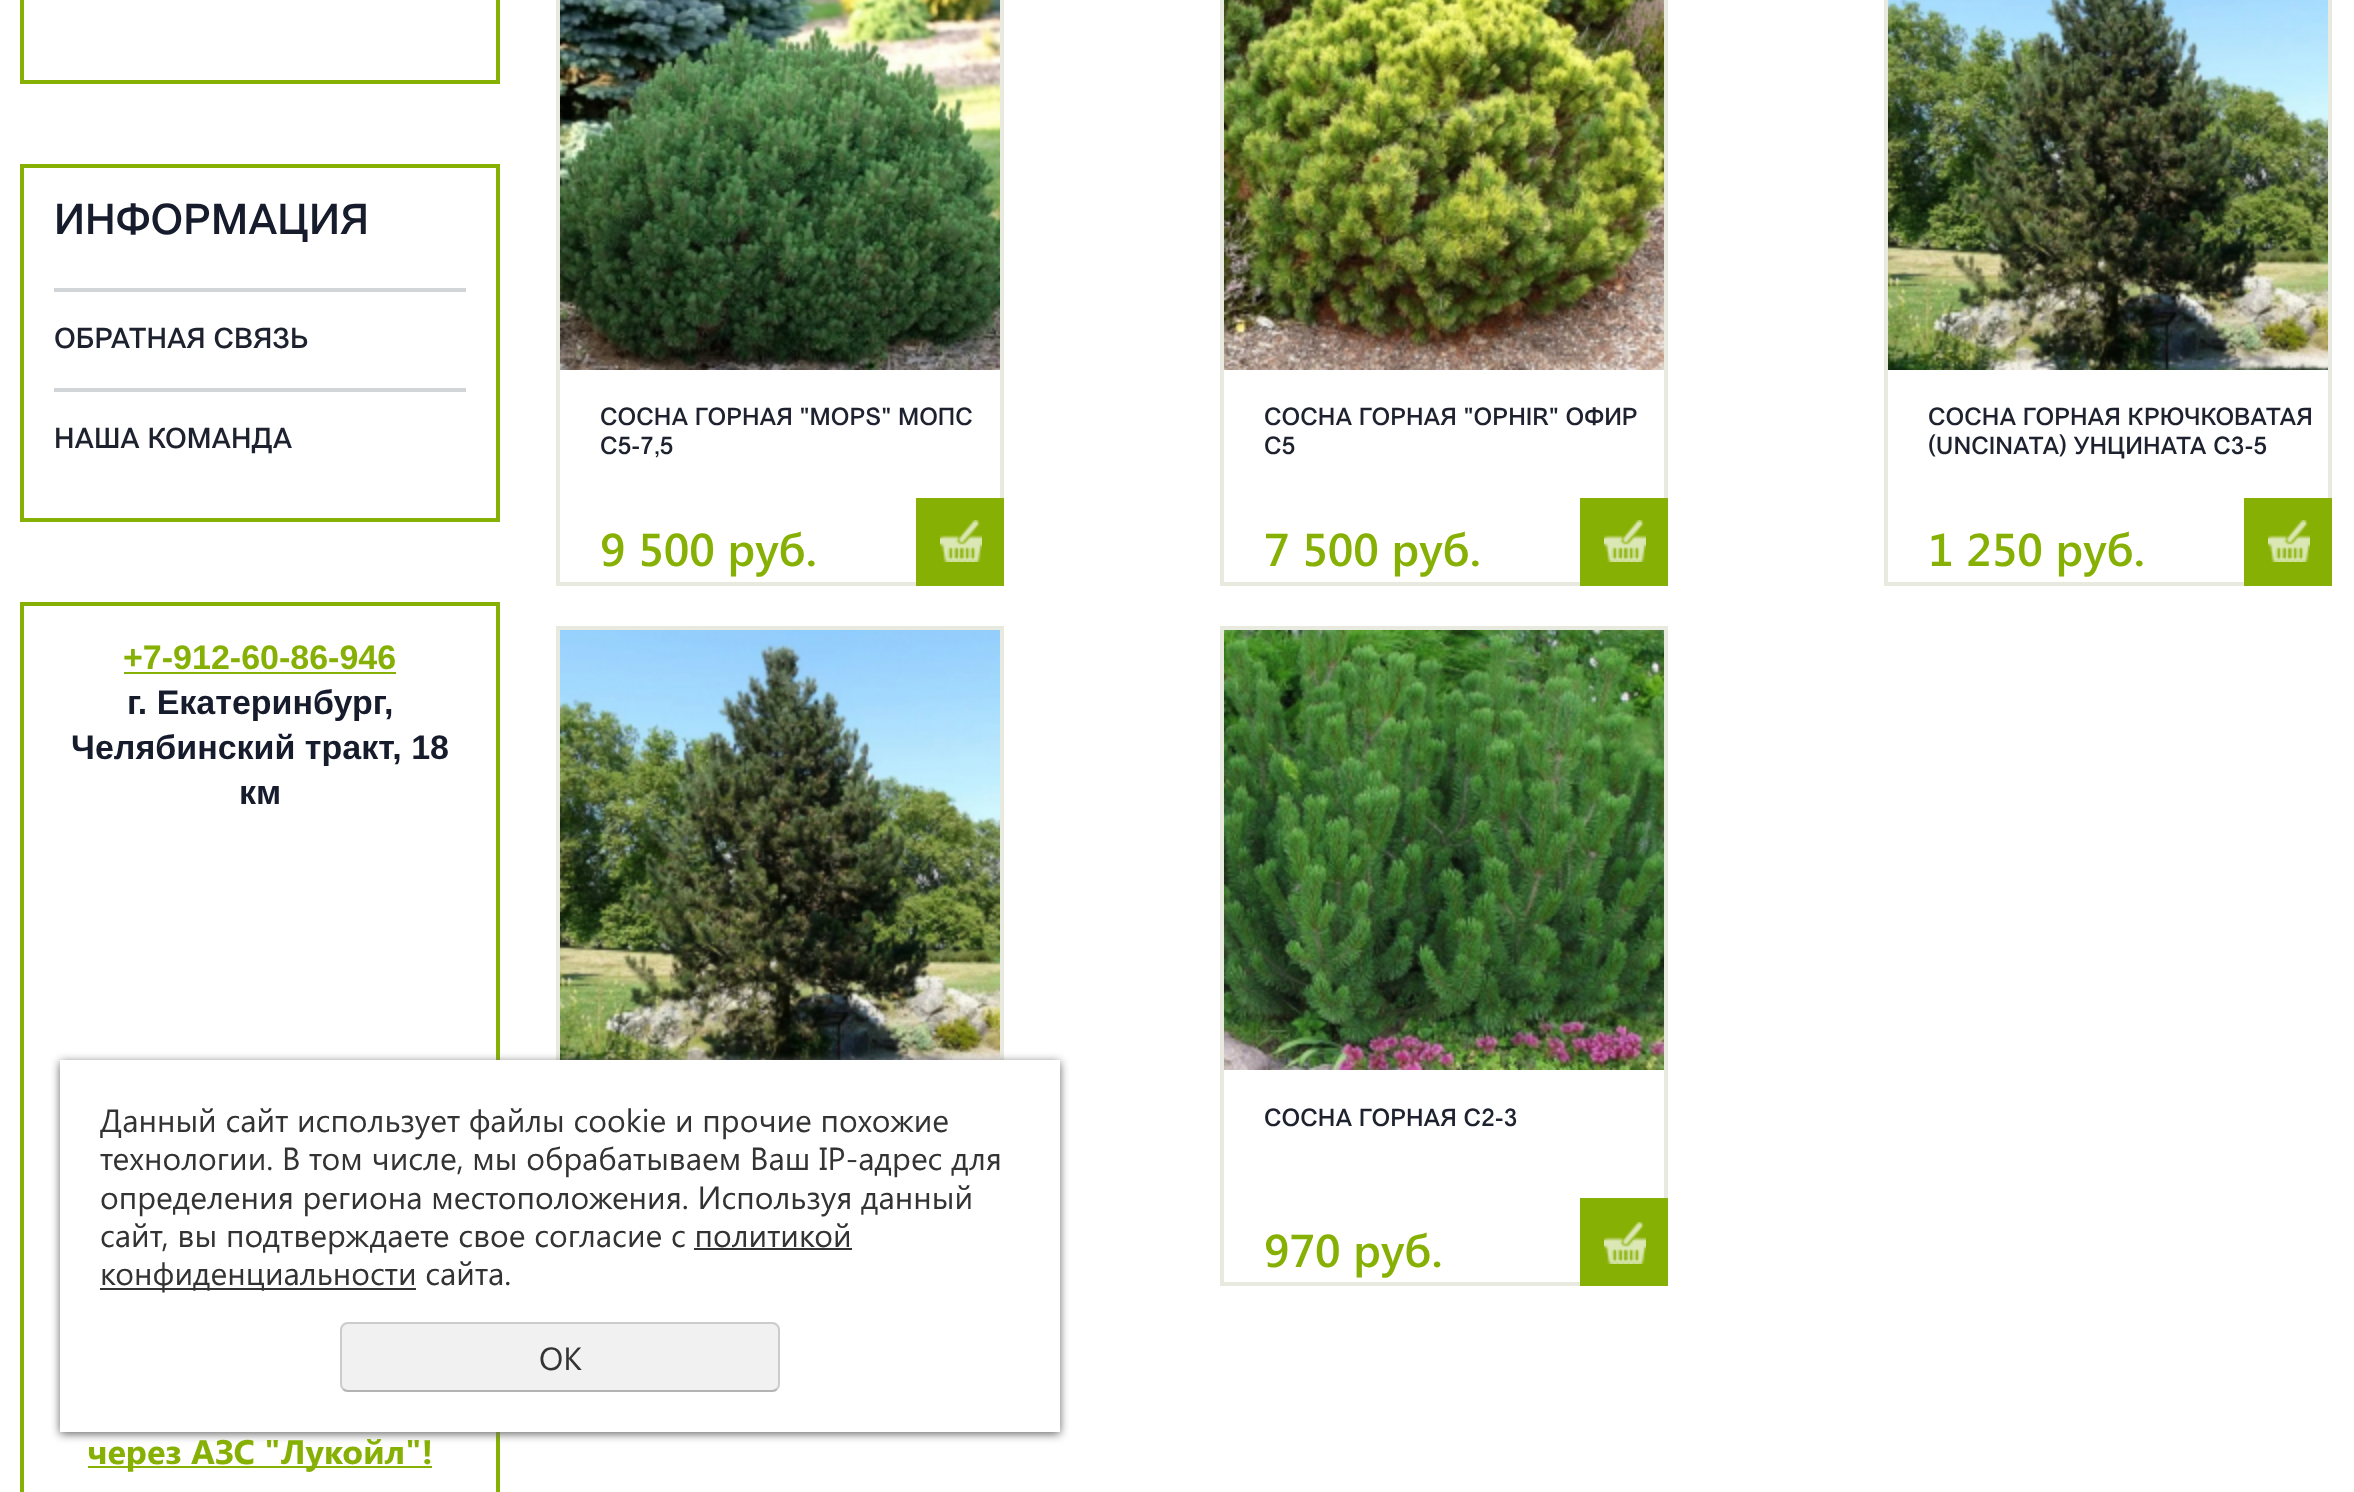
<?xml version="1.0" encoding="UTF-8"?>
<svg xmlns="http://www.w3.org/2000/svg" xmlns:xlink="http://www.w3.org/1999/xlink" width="2354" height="1492">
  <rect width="100%" height="100%" fill="#ffffff" />
  <rect x="22" y="-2" width="476" height="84" fill="none" stroke="#87b005" stroke-width="4" />
  <rect x="22" y="166" width="476" height="354" fill="none" stroke="#87b005" stroke-width="4" />
  <rect x="54" y="288" width="412" height="4" fill="#d2d5d8" />
  <rect x="54" y="388" width="412" height="4" fill="#d2d5d8" />
  <rect x="22" y="604" width="476" height="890" fill="none" stroke="#87b005" stroke-width="4" />
  <rect x="124" y="672" width="272" height="2" fill="#87b005" />
  <rect x="88" y="1466" width="344" height="2" fill="#87b005" />
  <rect x="558" y="-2" width="444" height="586" fill="none" stroke="#e8eae0" stroke-width="4" />
  <image x="560" y="0" width="440" height="370" xlink:href="image1.png" />
  <rect x="916" y="498" width="88" height="88" fill="#87b005" />
  <image x="940" y="520" width="42" height="42" xlink:href="image2.png" />
  <rect x="1222" y="-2" width="444" height="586" fill="none" stroke="#e8eae0" stroke-width="4" />
  <image x="1224" y="0" width="440" height="370" xlink:href="image3.png" />
  <rect x="1580" y="498" width="88" height="88" fill="#87b005" />
  <image x="1604" y="520" width="42" height="42" xlink:href="image2.png" />
  <rect x="1886" y="-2" width="444" height="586" fill="none" stroke="#e8eae0" stroke-width="4" />
  <image x="1888" y="0" width="440" height="370" xlink:href="image4.png" />
  <rect x="2244" y="498" width="88" height="88" fill="#87b005" />
  <image x="2268" y="520" width="42" height="42" xlink:href="image2.png" />
  <rect x="558" y="628" width="444" height="656" fill="none" stroke="#e8eae0" stroke-width="4" />
  <image x="560" y="630" width="440" height="430" xlink:href="image5.png" />
  <rect x="1222" y="628" width="444" height="656" fill="none" stroke="#e8eae0" stroke-width="4" />
  <image x="1224" y="630" width="440" height="440" xlink:href="image6.png" />
  <rect x="1580" y="1198" width="88" height="88" fill="#87b005" />
  <image x="1604" y="1222" width="42" height="42" xlink:href="image2.png" />
  <rect x="60" y="1062" width="1000" height="372" fill="#666666" filter="blur(5px)" />
  <rect x="60" y="1060" width="1000" height="372" fill="#ffffff" />
  <rect x="694" y="1248" width="158" height="2" fill="#333333" />
  <rect x="100" y="1288" width="316" height="2" fill="#333333" />
  <rect x="340" y="1322" width="440" height="70" rx="8" fill="#f1f1f1" />
  <path d="M 777 1389 c -1.5 1.5 -3 2 -5 2 h -424 c -2 0 -3.5 -0.5 -5 -2" fill="none" stroke="#b3b3b3" stroke-width="2" />
  <path d="M 343 1389 c -1.5 -1.5 -2 -3 -2 -5 v -54 c 0 -2 0.5 -3.5 2 -5 c 1.5 -1.5 3 -2 5 -2 h 424 c 2 0 3.5 0.5 5 2 c 1.5 1.5 2 3 2 5 v 54 c 0 2 -0.5 3.5 -2 5" fill="none" stroke="#cccccc" stroke-width="2" />
  <text x="54" y="234" style="font-family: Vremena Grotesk; font-size: 42px; fill: #161c2c">ИНФОРМАЦИЯ</text>
  <text x="54" y="348" style="font-family: Vremena Grotesk; font-size: 28px; fill: #1e222f">ОБРАТНАЯ СВЯЗЬ</text>
  <text x="54" y="448" style="font-family: Vremena Grotesk; font-size: 28px; fill: #1e222f">НАША КОМАНДА</text>
  <text x="123" y="669" style="font-family: Liberation Sans; font-size: 34px; font-weight: bold; fill: #87b005">+7-912-60-86-946</text>
  <text x="127" y="714" style="font-family: Liberation Sans; font-size: 34px; font-weight: bold; fill: #161c2c">г. Екатеринбург,</text>
  <text x="71" y="759" style="font-family: Liberation Sans; font-size: 34px; font-weight: bold; fill: #161c2c">Челябинский тракт, 18</text>
  <text x="239" y="804" style="font-family: Liberation Sans; font-size: 34px; font-weight: bold; fill: #161c2c">км</text>
  <text x="87" y="1464" style="font-family: Segoe UI; font-size: 34px; font-weight: bold; fill: #87b005">через АЗС "Лукойл"!</text>
  <text x="600" y="425" style="font-family: Vremena Grotesk; font-size: 24px; fill: #1e222f">СОСНА ГОРНАЯ "MOPS" МОПС</text>
  <text x="600" y="454" style="font-family: Vremena Grotesk; font-size: 24px; fill: #1e222f">С5-7,5</text>
  <text x="600" y="566" style="font-family: Segoe UI; font-size: 46px; font-weight: 600; fill: #87b005">9 500 руб.</text>
  <text x="1264" y="425" style="font-family: Vremena Grotesk; font-size: 24px; fill: #1e222f">СОСНА ГОРНАЯ "OPHIR" ОФИР</text>
  <text x="1264" y="454" style="font-family: Vremena Grotesk; font-size: 24px; fill: #1e222f">С5</text>
  <text x="1264" y="566" style="font-family: Segoe UI; font-size: 46px; font-weight: 600; fill: #87b005">7 500 руб.</text>
  <text x="1928" y="425" style="font-family: Vremena Grotesk; font-size: 24px; fill: #1e222f">СОСНА ГОРНАЯ КРЮЧКОВАТАЯ</text>
  <text x="1928" y="454" style="font-family: Vremena Grotesk; font-size: 24px; fill: #1e222f">(UNCINATA) УНЦИНАТА С3-5</text>
  <text x="1928" y="566" style="font-family: Segoe UI; font-size: 46px; font-weight: 600; fill: #87b005">1 250 руб.</text>
  <text x="1264" y="1126" style="font-family: Vremena Grotesk; font-size: 24px; fill: #1e222f">СОСНА ГОРНАЯ С2-3</text>
  <text x="1264" y="1267" style="font-family: Segoe UI; font-size: 46px; font-weight: 600; fill: #87b005">970 руб.</text>
  <text x="100" y="1132" style="font-family: Segoe UI; font-size: 32px; fill: #333333">Данный сайт использует файлы cookie и прочие похожие</text>
  <text x="100" y="1170" style="font-family: Segoe UI; font-size: 32px; fill: #333333">технологии. В том числе, мы обрабатываем Ваш IP-адрес для</text>
  <text x="100" y="1209" style="font-family: Segoe UI; font-size: 32px; fill: #333333">определения региона местоположения. Используя данный</text>
  <text x="100" y="1247" style="font-family: Segoe UI; font-size: 32px; fill: #333333">сайт, вы подтверждаете свое согласие с политикой</text>
  <text x="100" y="1285" style="font-family: Segoe UI; font-size: 32px; fill: #333333">конфиденциальности сайта.</text>
  <text x="539" y="1370" style="font-family: Segoe UI; font-size: 32px; fill: #333333">OK</text>
</svg>
